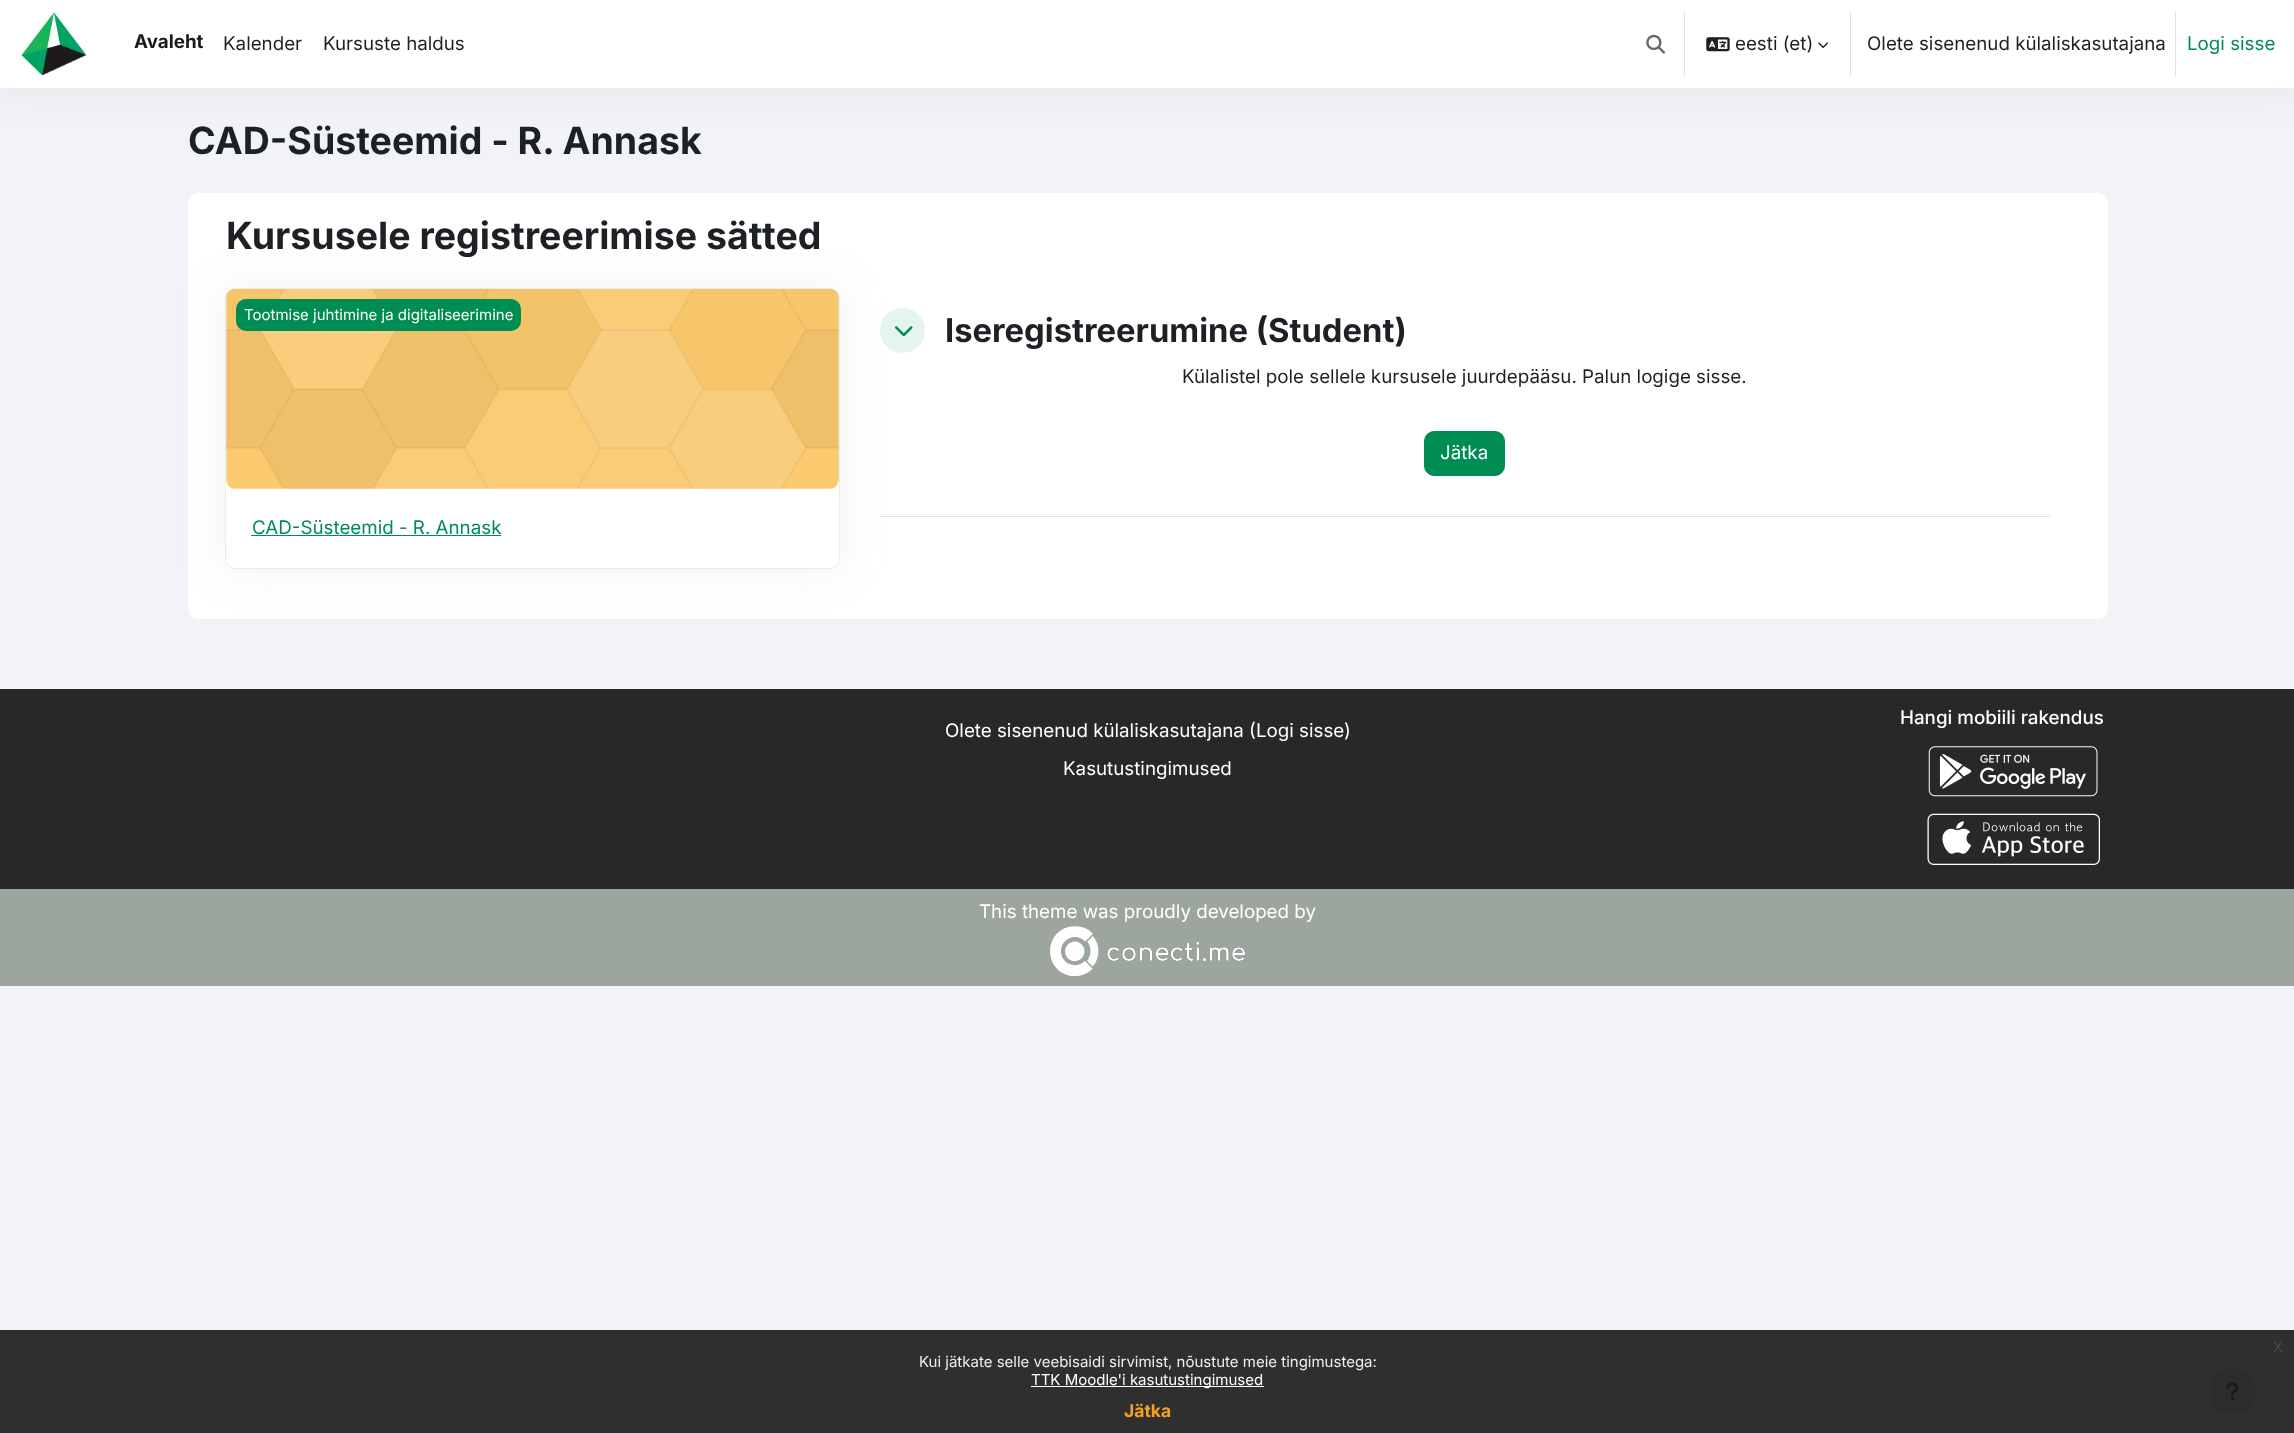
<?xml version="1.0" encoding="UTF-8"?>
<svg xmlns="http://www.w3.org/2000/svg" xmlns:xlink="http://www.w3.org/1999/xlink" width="2294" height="1433">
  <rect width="100%" height="100%" fill="#f2f3f7" />
  <rect y="1330" width="2294" height="103" fill="#2f2f2f" />
  <rect y="8" width="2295" height="87" fill="#8c98a4" fill-opacity="0.13" filter="blur(15px)" />
  <rect width="2294" height="88" fill="#ffffff" />
  <image x="21" y="12" width="66" height="64" xlink:href="image1.png" />
  <image x="1646" y="34" width="19" height="20" xlink:href="image2.png" />
  <rect x="1684" y="11" width="1" height="65" fill="#dee2e6" />
  <image x="1706" y="37" width="24" height="15" xlink:href="image3.png" />
  <image x="1818" y="42" width="10" height="6" xlink:href="image4.png" />
  <rect x="1850" y="11" width="1" height="65" fill="#dee2e6" />
  <rect x="2175" y="11" width="1" height="65" fill="#dee2e6" />
  <rect x="188" y="193" width="1920" height="426" rx="10" fill="#ffffff" />
  <rect x="880" y="516" width="1170" height="1" fill="#dee2e6" />
  <rect x="225" y="288" width="615" height="281" rx="10" fill="#9aa1ab" fill-opacity="0.15" filter="blur(22px)" />
  <rect x="225.5" y="288.5" width="614" height="280" rx="9.5" fill="#ffffff" stroke="#e9ecef" />
  <image x="226" y="289" width="613" height="200" xlink:href="image5.png" />
  <rect x="236" y="299" width="285" height="32" rx="10" fill="#008d53" />
  <rect x="251" y="535" width="250" height="1" fill="#008d53" />
  <circle cx="902.5" cy="330.5" r="22.5" fill="#e6f4ee" />
  <image x="895" y="326" width="18" height="11" xlink:href="image6.png" />
  <rect x="1424.5" y="431.5" width="80" height="44" rx="9.5" fill="#008d53" stroke="#008d53" />
  <rect y="689" width="2294" height="200" fill="#282829" />
  <image x="1928" y="746" width="170" height="51" xlink:href="image7.png" />
  <image x="1927" y="813" width="173" height="52" xlink:href="image8.png" />
  <rect y="889" width="2294" height="97" fill="#9ca69e" />
  <image x="1050" y="926" width="195" height="50" xlink:href="image9.png" />
  <circle cx="2232.5" cy="1391.5" r="22.5" fill="#2b2c2c" />
  <image x="2226" y="1382" width="13" height="18" xlink:href="image10.png" />
  <rect x="1031" y="1386" width="233" height="1" fill="#ffffff" />
  <text x="134" y="48" style="font-family: Inter; font-size: 18.75px; font-weight: bold; fill: #1a1a1a">Avaleht</text>
  <text x="223" y="50" style="font-family: Inter; font-size: 18.75px; fill: #1d2125">Kalender</text>
  <text x="323" y="50" style="font-family: Inter; font-size: 18.75px; fill: #1d2125">Kursuste haldus</text>
  <text x="1735" y="50" style="font-family: Inter; font-size: 18.75px; fill: #1d2125">eesti (et)</text>
  <text x="1867" y="50" style="font-family: Inter; font-size: 18.75px; fill: #1d2125">Olete sisenenud külaliskasutajana</text>
  <text x="2187" y="50" style="font-family: Inter; font-size: 18.75px; fill: #008d53">Logi sisse</text>
  <text x="188" y="154" style="font-family: Inter; font-size: 37.5px; font-weight: bold; fill: #1d2125">CAD-Süsteemid - R. Annask</text>
  <text x="226" y="249" style="font-family: Inter; font-size: 37.5px; font-weight: bold; fill: #1d2125">Kursusele registreerimise sätted</text>
  <text x="244" y="320" style="font-family: Inter; font-size: 15px; fill: #ffffff">Tootmise juhtimine ja digitaliseerimine</text>
  <text x="252" y="534" style="font-family: Inter; font-size: 18.75px; fill: #008d53">CAD-Süsteemid - R. Annask</text>
  <text x="945" y="342" style="font-family: Inter; font-size: 32.75px; font-weight: bold; fill: #1d2125">Iseregistreerumine (Student)</text>
  <text x="1182" y="383" style="font-family: Inter; font-size: 18.75px; fill: #1d2125">Külalistel pole sellele kursusele juurdepääsu. Palun logige sisse.</text>
  <text x="1440" y="459" style="font-family: Inter; font-size: 18.75px; fill: #ffffff">Jätka</text>
  <text x="1900" y="724" style="font-family: Inter; font-size: 18.75px; font-weight: 500; fill: #ffffff">Hangi mobiili rakendus</text>
  <text x="945" y="737" style="font-family: Inter; font-size: 18.75px; fill: #ffffff">Olete sisenenud külaliskasutajana (Logi sisse)</text>
  <text x="1063" y="775" style="font-family: Inter; font-size: 18.75px; fill: #ffffff">Kasutustingimused</text>
  <text x="979" y="918" style="font-family: Inter; font-size: 18.75px; fill: #ffffff">This theme was proudly developed by</text>
  <text x="2273" y="1352" style="font-family: Liberation Sans; font-size: 20px; fill: #464646">x</text>
  <text x="919" y="1367" style="font-family: Inter; font-size: 15px; fill: #efefef">Kui jätkate selle veebisaidi sirvimist, nõustute meie tingimustega:</text>
  <text x="1031" y="1385" style="font-family: Inter; font-size: 15px; fill: #ffffff">TTK Moodle'i kasutustingimused</text>
  <text x="1124" y="1417" style="font-family: Inter; font-size: 17.5px; font-weight: bold; fill: #f6a21d">Jätka</text>
</svg>
